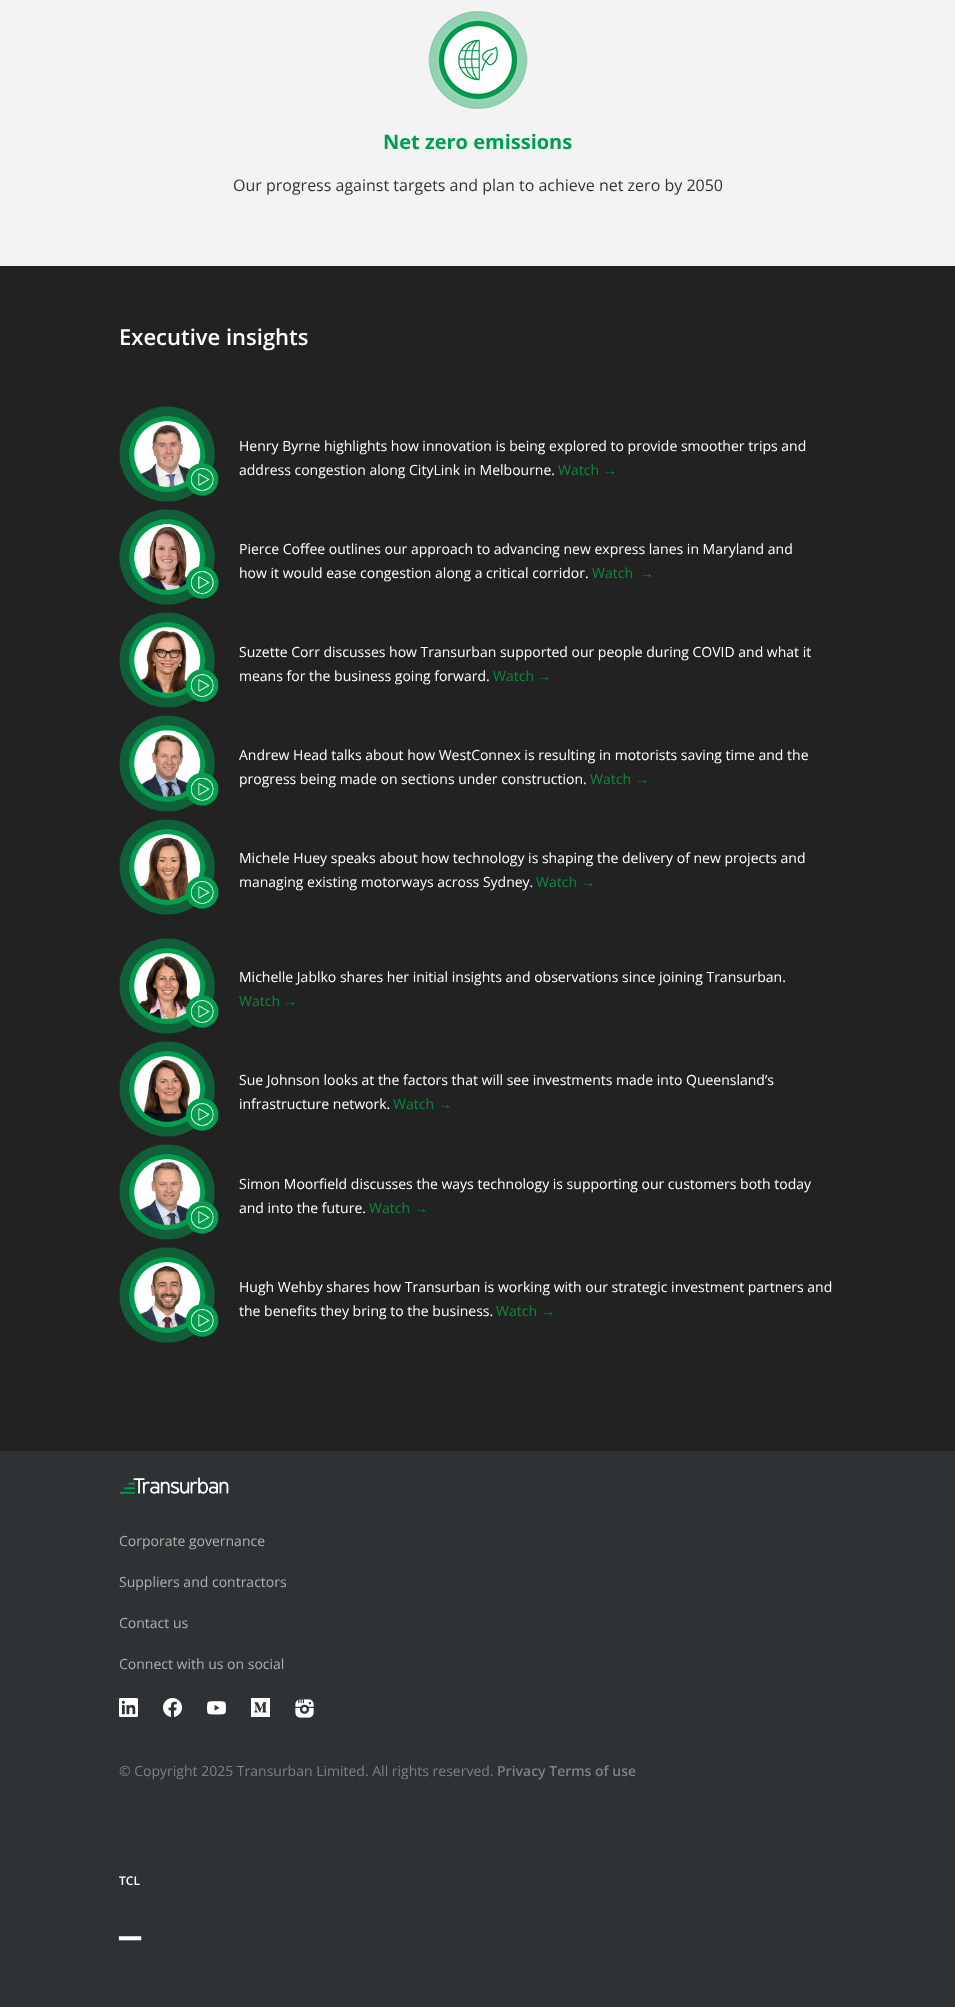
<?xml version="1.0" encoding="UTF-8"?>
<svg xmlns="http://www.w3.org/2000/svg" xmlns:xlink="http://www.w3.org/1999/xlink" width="955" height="2007">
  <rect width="100%" height="100%" fill="#2e3234" />
  <rect width="955" height="266" fill="#f3f3f3" />
  <image x="428" y="11" width="100" height="98" xlink:href="image1.png" />
  <rect y="266" width="955" height="1185" fill="#222222" />
  <image x="119" y="406" width="100" height="96" xlink:href="image2.png" />
  <image x="119" y="509" width="100" height="96" xlink:href="image3.png" />
  <image x="119" y="612" width="100" height="96" xlink:href="image4.png" />
  <image x="119" y="715" width="100" height="97" xlink:href="image5.png" />
  <image x="119" y="819" width="100" height="96" xlink:href="image6.png" />
  <image x="119" y="938" width="100" height="96" xlink:href="image7.png" />
  <image x="119" y="1041" width="100" height="96" xlink:href="image8.png" />
  <image x="119" y="1144" width="100" height="96" xlink:href="image9.png" />
  <image x="119" y="1247" width="100" height="96" xlink:href="image10.png" />
  <image x="119" y="1477" width="110" height="17" xlink:href="image11.png" />
  <image x="119" y="1698" width="19" height="19" xlink:href="image12.png" />
  <image x="163" y="1698" width="19" height="19" xlink:href="image13.png" />
  <image x="207" y="1701" width="19" height="14" xlink:href="image14.png" />
  <image x="251" y="1698" width="19" height="19" xlink:href="image15.png" />
  <image x="295" y="1699" width="19" height="19" xlink:href="image16.png" />
  <text x="383" y="149" style="font-family: Open Sans; font-size: 20px; font-weight: bold; fill: #009d4e">Net zero emissions</text>
  <text x="233" y="191" style="font-family: Open Sans; font-size: 16px; fill: #333333">Our progress against targets and plan to achieve net zero by 2050</text>
  <text x="119" y="345" style="font-family: Open Sans; font-size: 22px; font-weight: 600; fill: #ffffff">Executive insights</text>
  <text x="239" y="451" style="font-family: Open Sans; font-size: 14px; fill: #ffffff">Henry Byrne highlights how innovation is being explored to provide smoother trips and</text>
  <text x="239" y="475" style="font-family: Open Sans; font-size: 14px; fill: #ffffff">address congestion along CityLink in Melbourne.</text>
  <text x="558" y="475" style="font-family: Open Sans; font-size: 14px; fill: #0e893c">Watch</text>
  <text x="603" y="475" style="font-family: Liberation Sans; font-size: 14px; fill: #0e893c">→</text>
  <text x="239" y="554" style="font-family: Open Sans; font-size: 14px; fill: #ffffff">Pierce Coffee outlines our approach to advancing new express lanes in Maryland and</text>
  <text x="239" y="578" style="font-family: Open Sans; font-size: 14px; fill: #ffffff">how it would ease congestion along a critical corridor.</text>
  <text x="592" y="578" style="font-family: Open Sans; font-size: 14px; fill: #0e893c">Watch</text>
  <text x="640" y="578" style="font-family: Liberation Sans; font-size: 14px; fill: #0e893c">→</text>
  <text x="239" y="657" style="font-family: Open Sans; font-size: 14px; fill: #ffffff">Suzette Corr discusses how Transurban supported our people during COVID and what it</text>
  <text x="239" y="681" style="font-family: Open Sans; font-size: 14px; fill: #ffffff">means for the business going forward.</text>
  <text x="493" y="681" style="font-family: Open Sans; font-size: 14px; fill: #0e893c">Watch</text>
  <text x="537" y="681" style="font-family: Liberation Sans; font-size: 14px; fill: #0e893c">→</text>
  <text x="239" y="760" style="font-family: Open Sans; font-size: 14px; fill: #ffffff">Andrew Head talks about how WestConnex is resulting in motorists saving time and the</text>
  <text x="239" y="784" style="font-family: Open Sans; font-size: 14px; fill: #ffffff">progress being made on sections under construction.</text>
  <text x="590" y="784" style="font-family: Open Sans; font-size: 14px; fill: #0e893c">Watch</text>
  <text x="635" y="784" style="font-family: Liberation Sans; font-size: 14px; fill: #0e893c">→</text>
  <text x="239" y="863" style="font-family: Open Sans; font-size: 14px; fill: #ffffff">Michele Huey speaks about how technology is shaping the delivery of new projects and</text>
  <text x="239" y="887" style="font-family: Open Sans; font-size: 14px; fill: #ffffff">managing existing motorways across Sydney.</text>
  <text x="536" y="887" style="font-family: Open Sans; font-size: 14px; fill: #0e893c">Watch</text>
  <text x="581" y="887" style="font-family: Liberation Sans; font-size: 14px; fill: #0e893c">→</text>
  <text x="239" y="982" style="font-family: Open Sans; font-size: 14px; fill: #ffffff">Michelle Jablko shares her initial insights and observations since joining Transurban.</text>
  <text x="239" y="1006" style="font-family: Open Sans; font-size: 14px; fill: #0e893c">Watch</text>
  <text x="283" y="1006" style="font-family: Liberation Sans; font-size: 14px; fill: #0e893c">→</text>
  <text x="239" y="1085" style="font-family: Open Sans; font-size: 14px; fill: #ffffff">Sue Johnson looks at the factors that will see investments made into Queensland’s</text>
  <text x="239" y="1109" style="font-family: Open Sans; font-size: 14px; fill: #ffffff">infrastructure network.</text>
  <text x="393" y="1109" style="font-family: Open Sans; font-size: 14px; fill: #0e893c">Watch</text>
  <text x="438" y="1109" style="font-family: Liberation Sans; font-size: 14px; fill: #0e893c">→</text>
  <text x="239" y="1189" style="font-family: Open Sans; font-size: 14px; fill: #ffffff">Simon Moorfield discusses the ways technology is supporting our customers both today</text>
  <text x="239" y="1213" style="font-family: Open Sans; font-size: 14px; fill: #ffffff">and into the future.</text>
  <text x="369" y="1213" style="font-family: Open Sans; font-size: 14px; fill: #0e893c">Watch</text>
  <text x="414" y="1213" style="font-family: Liberation Sans; font-size: 14px; fill: #0e893c">→</text>
  <text x="239" y="1292" style="font-family: Open Sans; font-size: 14px; fill: #ffffff">Hugh Wehby shares how Transurban is working with our strategic investment partners and</text>
  <text x="239" y="1316" style="font-family: Open Sans; font-size: 14px; fill: #ffffff">the benefits they bring to the business.</text>
  <text x="496" y="1316" style="font-family: Open Sans; font-size: 14px; fill: #0e893c">Watch</text>
  <text x="541" y="1316" style="font-family: Liberation Sans; font-size: 14px; fill: #0e893c">→</text>
  <text x="119" y="1546" style="font-family: Open Sans; font-size: 14px; fill: #b1b0ad">Corporate governance</text>
  <text x="119" y="1587" style="font-family: Open Sans; font-size: 14px; fill: #b1b0ad">Suppliers and contractors</text>
  <text x="119" y="1628" style="font-family: Open Sans; font-size: 14px; fill: #b1b0ad">Contact us</text>
  <text x="119" y="1669" style="font-family: Open Sans; font-size: 14px; fill: #b1b0ad">Connect with us on social</text>
  <text x="119" y="1776" style="font-family: Open Sans; font-size: 14px; fill: #818080">© Copyright 2025 Transurban Limited. All rights reserved.</text>
  <text x="497" y="1776" style="font-family: Open Sans; font-size: 14px; font-weight: 600; fill: #818080">Privacy Terms of use</text>
  <text x="119" y="1885" style="font-family: Open Sans; font-size: 12px; font-weight: 600; fill: #ffffff">TCL</text>
  <text x="119" y="1949" style="font-family: Liberation Sans; font-size: 40px; font-weight: bold; fill: #ffffff">‒</text>
</svg>
